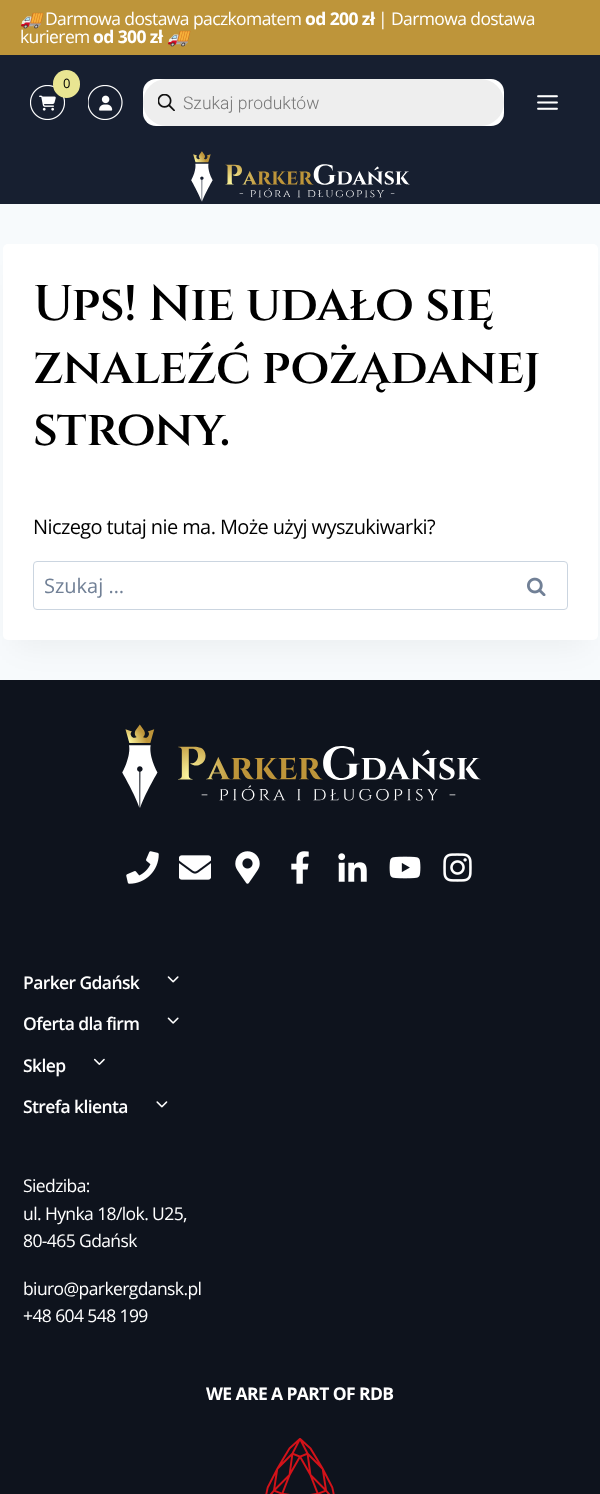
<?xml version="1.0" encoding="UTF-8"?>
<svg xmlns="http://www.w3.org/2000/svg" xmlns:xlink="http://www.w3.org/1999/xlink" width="600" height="1494">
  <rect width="100%" height="100%" fill="#f7fafc" />
  <rect y="55" width="600" height="149" fill="#171f30" />
  <rect width="600" height="55" fill="#be953a" />
  <image x="30" y="85" width="35" height="35" xlink:href="image1.png" />
  <rect x="53" y="70" width="27" height="28" rx="13.5" fill="#e9e592" />
  <image x="88" y="85" width="35" height="35" xlink:href="image2.png" />
  <rect x="143" y="79" width="361" height="47" rx="13" fill="#ffffff" />
  <rect x="143" y="79" width="361" height="47" rx="23.5" fill="#eeeeee" />
  <image x="158" y="94" width="17" height="17" xlink:href="image3.png" />
  <image x="537" y="95" width="21" height="15" xlink:href="image4.png" />
  <image x="191" y="151" width="219" height="51" xlink:href="image5.png" />
  <rect x="15" y="275" width="570" height="371" fill="#000000" fill-opacity="0.05" filter="blur(15.5px)" />
  <rect x="3" y="244" width="595" height="396" rx="5" fill="#ffffff" />
  <rect x="33.5" y="561.5" width="534" height="48" rx="3.5" fill="none" stroke="#cbd5e0" />
  <image x="527" y="577" width="19" height="19" xlink:href="image6.png" />
  <rect y="680" width="600" height="814" fill="#0e131d" />
  <image x="122" y="724" width="359" height="84" xlink:href="image7.png" />
  <image x="126" y="851" width="33" height="33" xlink:href="image8.png" />
  <image x="179" y="855" width="32" height="25" xlink:href="image9.png" />
  <image x="235" y="851" width="25" height="33" xlink:href="image10.png" />
  <image x="291" y="851" width="18" height="33" xlink:href="image11.png" />
  <image x="338" y="853" width="29" height="29" xlink:href="image12.png" />
  <image x="389" y="856" width="32" height="23" xlink:href="image13.png" />
  <image x="443" y="853" width="29" height="29" xlink:href="image14.png" />
  <image x="167" y="976" width="12" height="7" xlink:href="image15.png" />
  <image x="167" y="1017" width="12" height="7" xlink:href="image16.png" />
  <image x="93" y="1058" width="12" height="7" xlink:href="image17.png" />
  <image x="156" y="1101" width="12" height="7" xlink:href="image18.png" />
  <image x="265" y="1438" width="70" height="56" xlink:href="image19.png" />
  <text x="20" y="25" style="font-family: Noto Color Emoji; font-size: 17.5px; font-style: italic; letter-spacing: -0.6px; fill: #ffffff">🚚</text>
  <text x="45" y="25" style="font-family: Open Sans; font-size: 17.5px; letter-spacing: -0.6px; fill: #ffffff">Darmowa dostawa paczkomatem</text>
  <text x="305" y="25" style="font-family: Open Sans; font-size: 17.5px; font-weight: bold; letter-spacing: -0.6px; fill: #ffffff">od 200 zł</text>
  <text x="378" y="25" style="font-family: Open Sans; font-size: 17.5px; letter-spacing: -0.6px; fill: #ffffff">| Darmowa dostawa</text>
  <text x="20" y="43" style="font-family: Open Sans; font-size: 17.5px; letter-spacing: -0.6px; fill: #ffffff">kurierem</text>
  <text x="93" y="43" style="font-family: Open Sans; font-size: 17.5px; font-weight: bold; letter-spacing: -0.6px; fill: #ffffff">od 300 zł</text>
  <text x="167" y="43" style="font-family: Noto Color Emoji; font-size: 17.5px; font-style: italic; letter-spacing: -0.6px; fill: #ffffff">🚚</text>
  <text x="63" y="88" style="font-family: Open Sans; font-size: 13px; letter-spacing: -0.6px; fill: #000000">0</text>
  <text x="183" y="109" style="font-family: Roboto; font-size: 17.5px; font-weight: 300; fill: #777777">Szukaj produktów</text>
  <text x="33" y="320" style="font-family: Cinzel; font-size: 50px; font-weight: 600; letter-spacing: -0.6px; fill: #000000">Ups! Nie udało się</text>
  <text x="33" y="383" style="font-family: Cinzel; font-size: 50px; font-weight: 600; letter-spacing: -0.6px; fill: #000000">znaleźć pożądanej</text>
  <text x="33" y="445" style="font-family: Cinzel; font-size: 50px; font-weight: 600; letter-spacing: -0.6px; fill: #000000">strony.</text>
  <text x="33" y="534" style="font-family: Open Sans; font-size: 20px; letter-spacing: -0.6px; fill: #000000">Niczego tutaj nie ma. Może użyj wyszukiwarki?</text>
  <text x="44" y="593" style="font-family: Open Sans; font-size: 20px; fill: #718096">Szukaj …</text>
  <text x="23" y="989" style="font-family: Open Sans; font-size: 17.5px; font-weight: 600; letter-spacing: -0.6px; fill: #ffffff">Parker Gdańsk</text>
  <text x="23" y="1030" style="font-family: Open Sans; font-size: 17.5px; font-weight: 600; letter-spacing: -0.6px; fill: #ffffff">Oferta dla firm</text>
  <text x="23" y="1072" style="font-family: Open Sans; font-size: 17.5px; font-weight: 600; letter-spacing: -0.6px; fill: #ffffff">Sklep</text>
  <text x="23" y="1113" style="font-family: Open Sans; font-size: 17.5px; font-weight: 600; letter-spacing: -0.6px; fill: #ffffff">Strefa klienta</text>
  <text x="23" y="1192" style="font-family: Open Sans; font-size: 17.5px; letter-spacing: -0.6px; fill: #ffffff">Siedziba:</text>
  <text x="23" y="1220" style="font-family: Open Sans; font-size: 17.5px; letter-spacing: -0.6px; fill: #ffffff">ul. Hynka 18/lok. U25,</text>
  <text x="23" y="1247" style="font-family: Open Sans; font-size: 17.5px; letter-spacing: -0.6px; fill: #ffffff">80-465 Gdańsk</text>
  <text x="23" y="1295" style="font-family: Open Sans; font-size: 17.5px; letter-spacing: -0.6px; fill: #ffffff">biuro@parkergdansk.pl</text>
  <text x="23" y="1322" style="font-family: Open Sans; font-size: 17.5px; letter-spacing: -0.6px; fill: #ffffff">+48 604 548 199</text>
  <text x="206" y="1400" style="font-family: Open Sans; font-size: 17.5px; font-weight: bold; letter-spacing: -0.6px; fill: #ffffff">WE ARE A PART OF RDB</text>
</svg>
